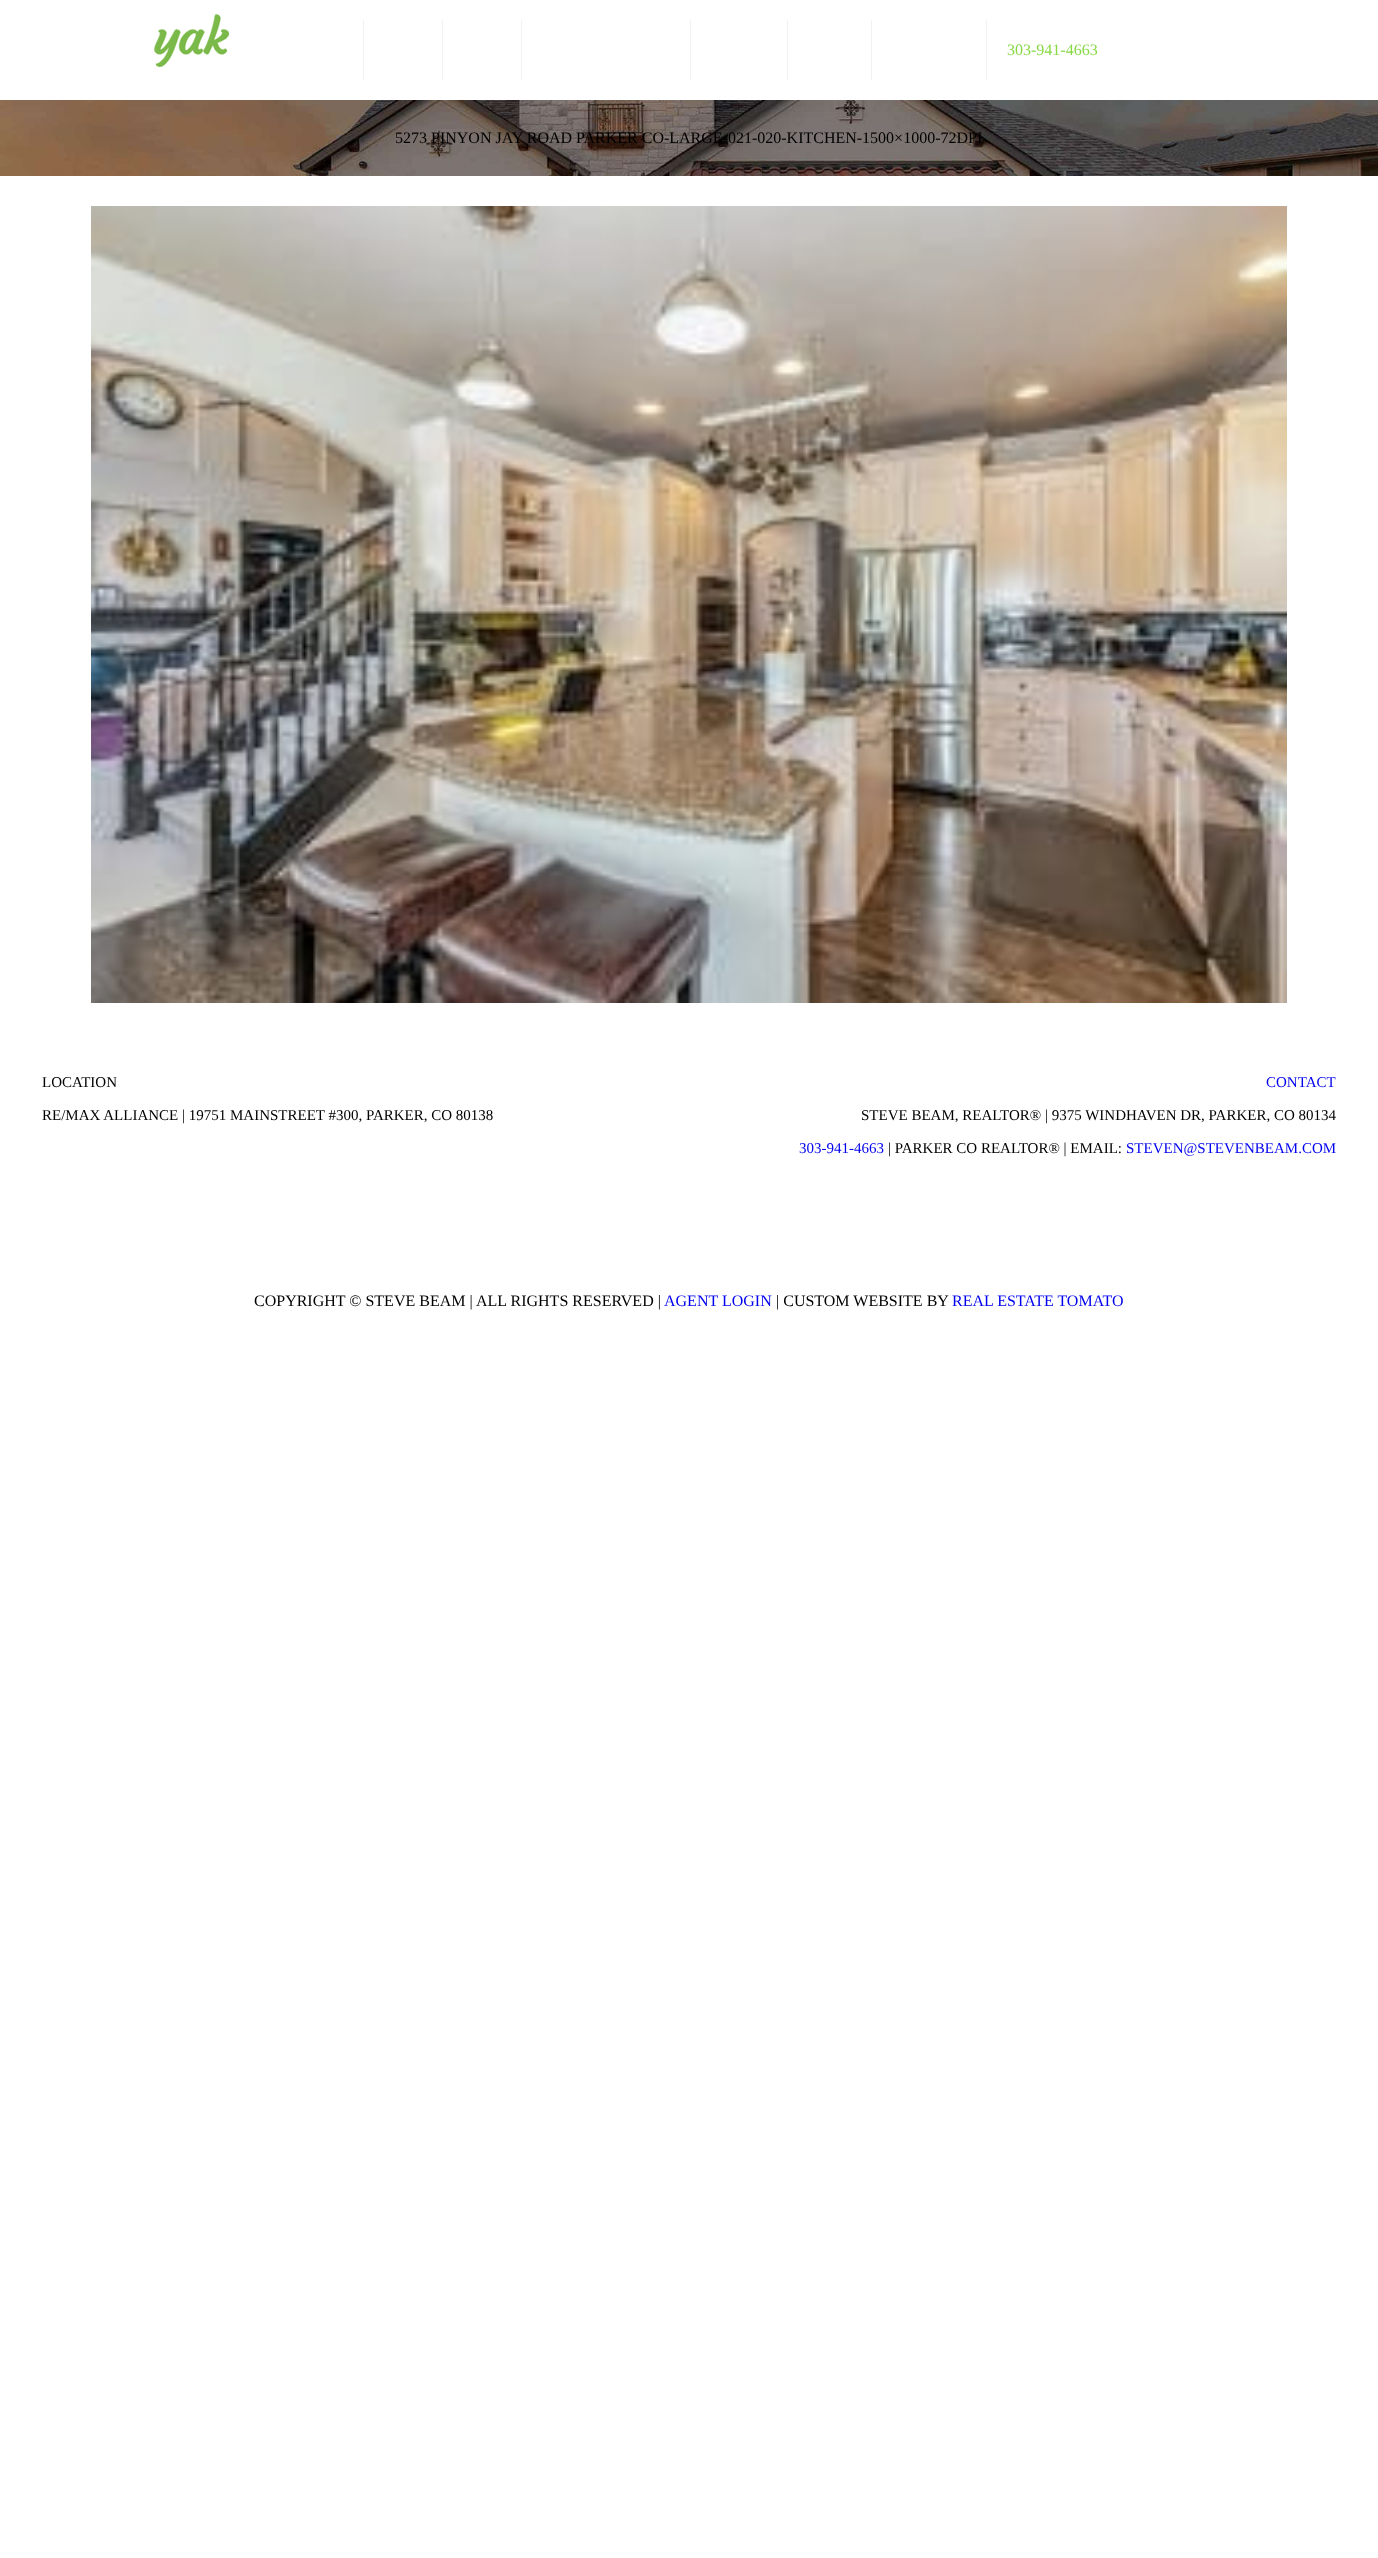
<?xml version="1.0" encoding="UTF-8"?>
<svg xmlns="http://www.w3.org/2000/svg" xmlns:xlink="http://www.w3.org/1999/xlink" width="1378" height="2558">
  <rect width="100%" height="100%" fill="#ffffff" />
  <image x="71" y="14" width="159" height="54" xlink:href="image1.png" />
  <rect x="363" y="20" width="1" height="60" fill="#f2f2f2" />
  <rect x="442" y="20" width="1" height="60" fill="#f2f2f2" />
  <rect x="521" y="20" width="1" height="60" fill="#f2f2f2" />
  <rect x="690" y="20" width="1" height="60" fill="#f2f2f2" />
  <rect x="787" y="20" width="1" height="60" fill="#f2f2f2" />
  <rect x="871" y="20" width="1" height="60" fill="#f2f2f2" />
  <rect x="986" y="20" width="1" height="60" fill="#f2f2f2" />
  <image x="0" y="100" width="1378" height="76" xlink:href="image2.png" />
  <image x="91" y="206" width="1196" height="797" xlink:href="image3.png" />
  <text x="1007" y="55" style="font-family: Liberation Serif; font-size: 16px; fill: #87d944">303-941-4663</text>
  <text x="395" y="143" style="font-family: Liberation Serif; font-size: 16px; fill: #000000">5273 PINYON JAY ROAD PARKER CO-LARGE-021-020-KITCHEN-1500×1000-72DPI</text>
  <text x="42" y="1087" style="font-family: Liberation Serif; font-size: 15px; fill: #000000">LOCATION</text>
  <text x="42" y="1120" style="font-family: Liberation Serif; font-size: 15px; fill: #000000">RE/MAX ALLIANCE | 19751 MAINSTREET #300, PARKER, CO 80138</text>
  <text x="1266" y="1087" style="font-family: Liberation Serif; font-size: 15px; fill: #0000ee">CONTACT</text>
  <text x="861" y="1120" style="font-family: Liberation Serif; font-size: 15px; fill: #000000">STEVE BEAM, REALTOR® | 9375 WINDHAVEN DR, PARKER, CO 80134</text>
  <text x="799" y="1153" style="font-family: Liberation Serif; font-size: 15px; fill: #0000ee">303-941-4663</text>
  <text x="888" y="1153" style="font-family: Liberation Serif; font-size: 15px; fill: #000000">| PARKER CO REALTOR® | EMAIL:</text>
  <text x="1126" y="1153" style="font-family: Liberation Serif; font-size: 15px; fill: #0000ee">STEVEN@STEVENBEAM.COM</text>
  <text x="254" y="1306" style="font-family: Liberation Serif; font-size: 16px; fill: #000000">COPYRIGHT © STEVE BEAM |</text>
  <text x="476" y="1306" style="font-family: Liberation Serif; font-size: 16px; fill: #000000">ALL RIGHTS RESERVED |</text>
  <text x="664" y="1306" style="font-family: Liberation Serif; font-size: 16px; fill: #0000ee">AGENT LOGIN</text>
  <text x="776" y="1306" style="font-family: Liberation Serif; font-size: 16px; fill: #000000">| CUSTOM WEBSITE BY</text>
  <text x="952" y="1306" style="font-family: Liberation Serif; font-size: 16px; fill: #0000ee">REAL ESTATE TOMATO</text>
</svg>
